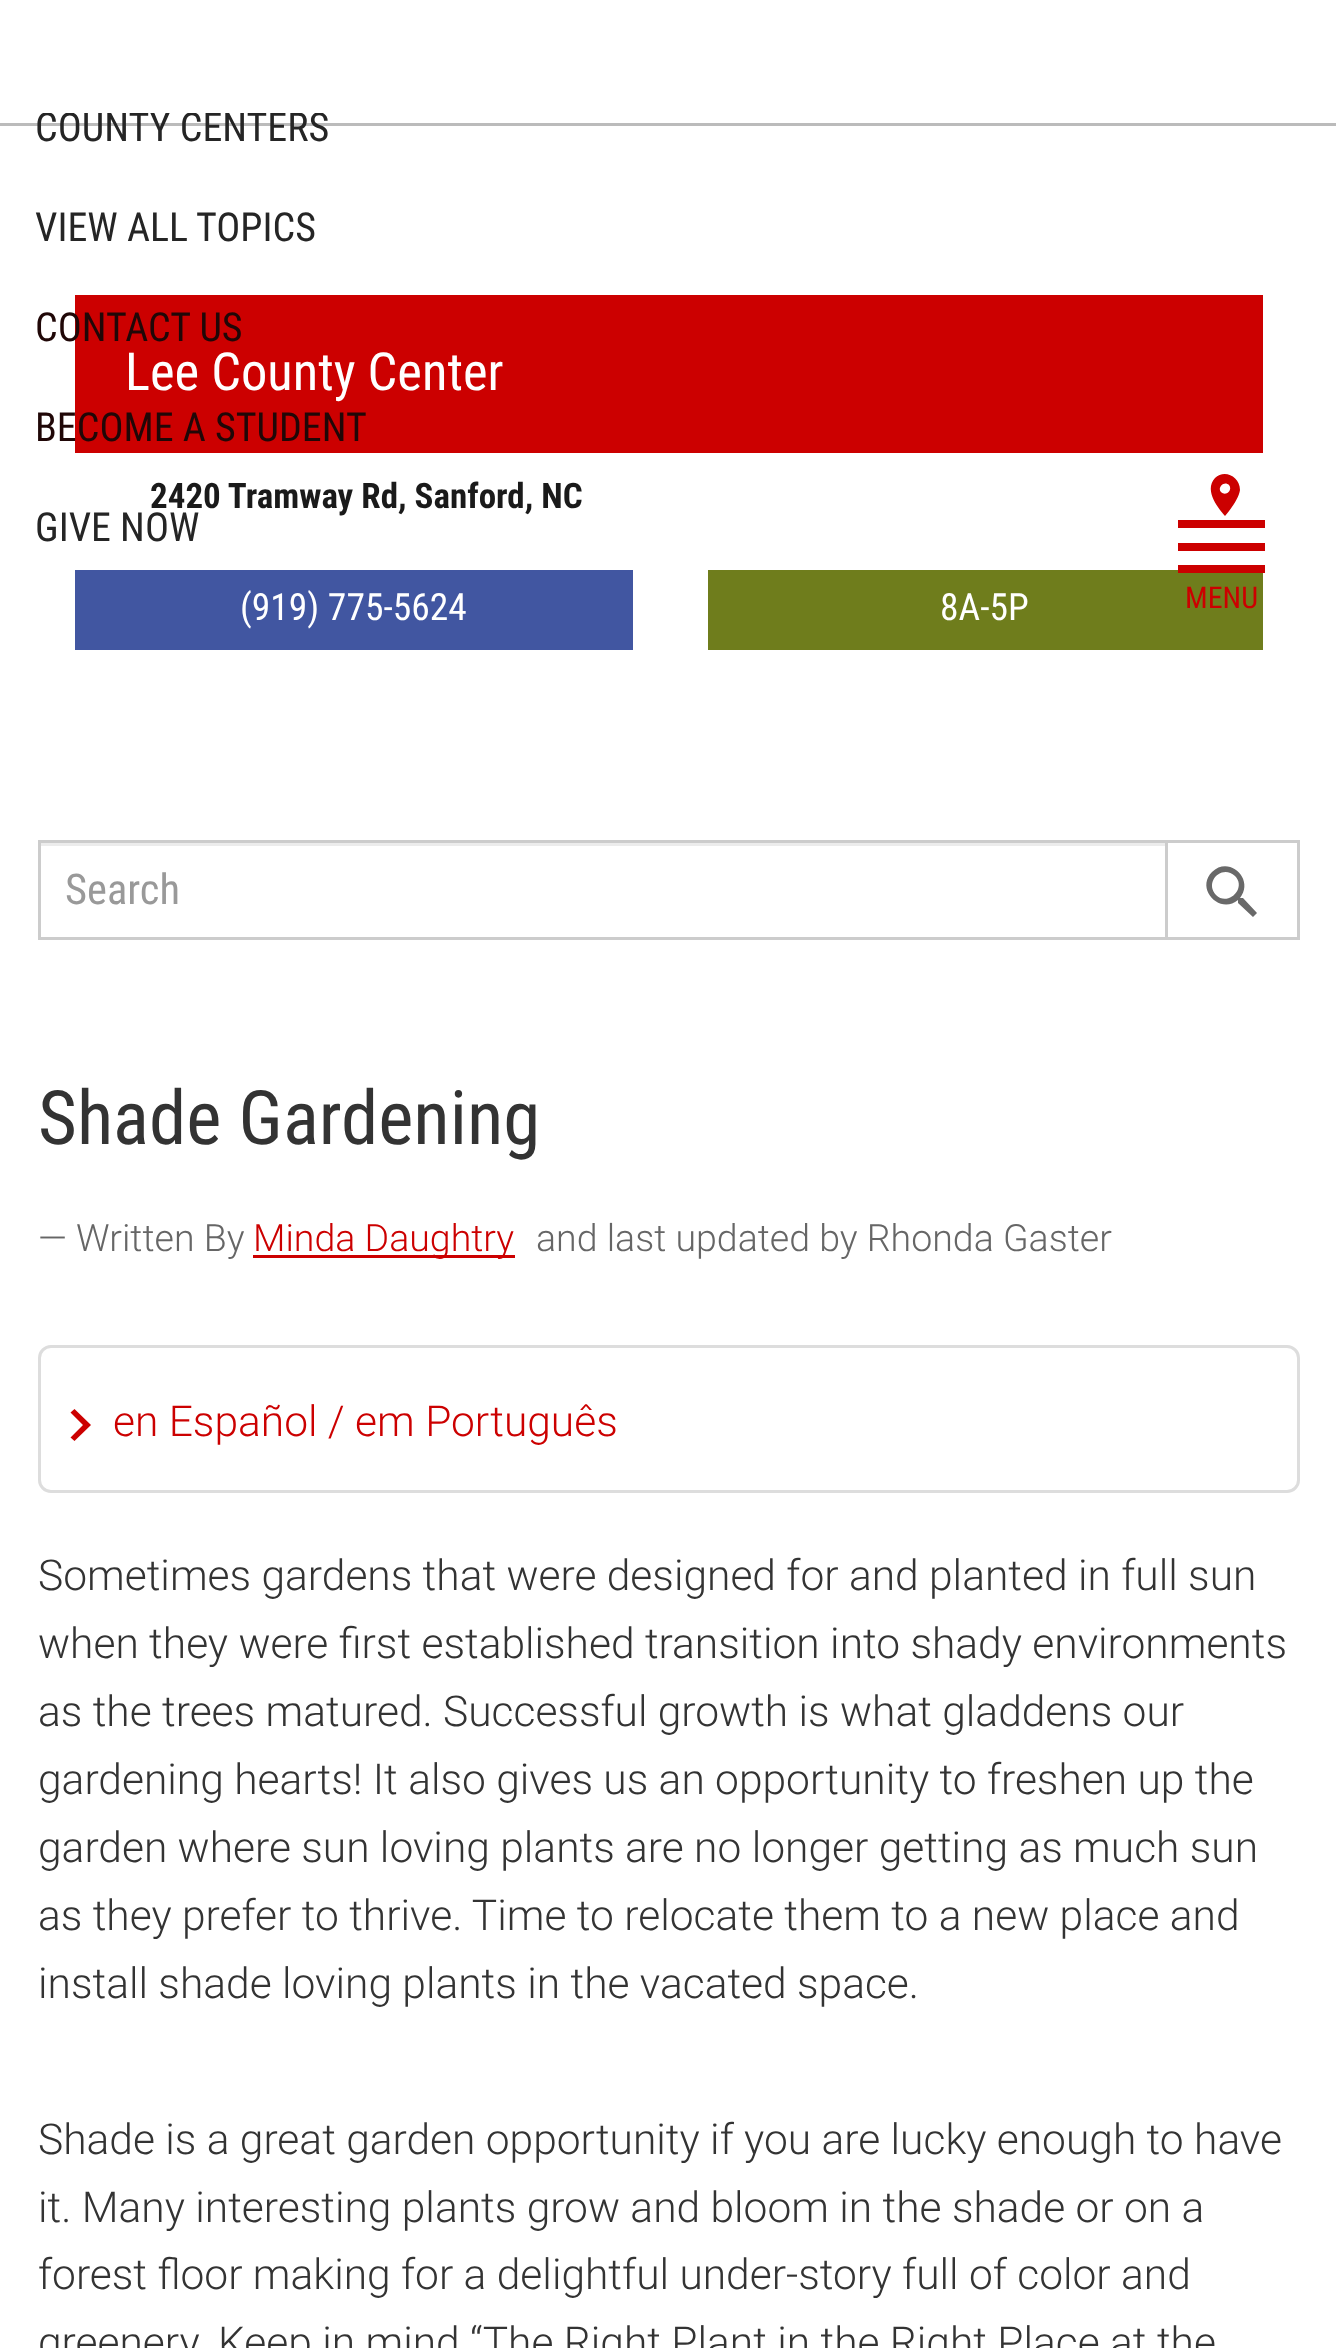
<?xml version="1.0" encoding="UTF-8"?>
<svg xmlns="http://www.w3.org/2000/svg" xmlns:xlink="http://www.w3.org/1999/xlink" width="1336" height="2348">
  <rect width="100%" height="100%" fill="#ffffff" />
  <rect y="123" width="1336" height="3" fill="#bbbbbb" />
  <rect x="1178" y="520" width="87" height="8" fill="#cc0000" />
  <rect x="1178" y="543" width="87" height="8" fill="#cc0000" />
  <rect x="708" y="570" width="555" height="80" fill="#6f7d1c" />
  <rect x="1178" y="565" width="87" height="8" fill="#cc0000" />
  <rect x="75" y="295" width="1188" height="158" fill="#cc0000" />
  <path d="M 1221 492 c 5 5 12 -2 8 -7 c -5 -5 -12 3 -8 7 z m -6 -14 c 9 -9 25 -2 25 12 c -1 8 -9 19 -15 26 c -8 -9 -21 -26 -10 -38 z" fill="#cc0000" />
  <rect x="75" y="570" width="558" height="80" fill="#4156a1" />
  <rect x="40" y="843" width="1125" height="3" fill="#ececec" />
  <rect x="39.5" y="841.5" width="1127" height="97" fill="none" stroke="#cccccc" stroke-width="3" />
  <rect x="1166.5" y="841.5" width="132" height="97" fill="none" stroke="#cccccc" stroke-width="3" />
  <path d="M 1216 895 c 12 12 31 -7 19 -19 c -13 -12 -31 6 -19 19 z m 27 3 l 14 15 l -4 4 l -15 -14 v -3 c -18 15 -43 -11 -26 -28 c 17 -17 43 7 28 26 z" fill="#696969" />
  <rect x="253" y="1255" width="262" height="3" fill="#cc0000" />
  <rect x="39.5" y="1346.5" width="1259" height="145" rx="11.5" fill="none" stroke="#dddddd" stroke-width="3" />
  <path d="M 74.5 1409 l 16.5 16 l -16.5 16 l -4 -3.5 l 12.5 -12.5 l -12.5 -12.5 z" fill="#cc0000" />
  <text x="35" y="141" style="font-family: Roboto Condensed; font-size: 40px; fill: #252525">COUNTY CENTERS</text>
  <text x="35" y="241" style="font-family: Roboto Condensed; font-size: 40px; fill: #252525">VIEW ALL</text>
  <text x="196" y="241" style="font-family: Roboto Condensed; font-size: 40px; fill: #252525">TOPICS</text>
  <text x="35" y="341" style="font-family: Roboto Condensed; font-size: 40px; fill: #200707">CONTACT US</text>
  <text x="35" y="441" style="font-family: Roboto Condensed; font-size: 40px; fill: #200707">BECOME A STUDENT</text>
  <text x="35" y="541" style="font-family: Roboto Condensed; font-size: 40px; fill: #252525">GIVE NOW</text>
  <rect x="43" y="112" width="280" height="1" fill="#ffffff" />
  <text x="1185" y="608" style="font-family: Roboto Condensed; font-size: 30px; fill: #cc0000">MENU</text>
  <text x="125" y="390" style="font-family: Roboto Condensed; font-size: 52.5px; fill: #ffffff">Lee County Center</text>
  <text x="150" y="508" style="font-family: Roboto Condensed; font-size: 35px; font-weight: bold; fill: #1a1a1a">2420 Tramway Rd, Sanford, NC</text>
  <text x="240" y="620" style="font-family: Roboto Condensed; font-size: 37.5px; fill: #ffffff">(919) 775-5624</text>
  <text x="940" y="620" style="font-family: Roboto Condensed; font-size: 37.5px; fill: #ffffff">8A-5P</text>
  <text x="65" y="904" style="font-family: Roboto Condensed; font-size: 42.5px; fill: #999999">Search</text>
  <text x="38" y="1144" style="font-family: Roboto Condensed; font-size: 75px; fill: #333333">Shade Gardening</text>
  <text x="38" y="1251" style="font-family: Roboto; font-size: 37.5px; font-weight: 300; fill: #666666">— Written By</text>
  <text x="253" y="1251" style="font-family: Roboto; font-size: 37.5px; font-weight: 300; fill: #cc0000">Minda Daughtry</text>
  <text x="536" y="1251" style="font-family: Roboto; font-size: 37.5px; font-weight: 300; fill: #666666">and last updated by Rhonda Gaster</text>
  <text x="113" y="1436" style="font-family: Roboto; font-size: 42.5px; font-weight: 300; fill: #cc0000">en Español / em Português</text>
  <text x="38" y="1590" style="font-family: Roboto; font-size: 42.5px; font-weight: 300; fill: #333333">Sometimes gardens that were designed for and planted in full sun</text>
  <text x="38" y="1658" style="font-family: Roboto; font-size: 42.5px; font-weight: 300; fill: #333333">when they were first established transition into shady environments</text>
  <text x="38" y="1726" style="font-family: Roboto; font-size: 42.5px; font-weight: 300; fill: #333333">as the trees matured. Successful growth is what gladdens our</text>
  <text x="38" y="1794" style="font-family: Roboto; font-size: 42.5px; font-weight: 300; fill: #333333">gardening hearts! It also gives us an opportunity to freshen up the</text>
  <text x="38" y="1862" style="font-family: Roboto; font-size: 42.5px; font-weight: 300; fill: #333333">garden where sun loving plants are no longer getting as much sun</text>
  <text x="38" y="1930" style="font-family: Roboto; font-size: 42.5px; font-weight: 300; fill: #333333">as they prefer to thrive. Time to relocate them to a new place and</text>
  <text x="38" y="1998" style="font-family: Roboto; font-size: 42.5px; font-weight: 300; fill: #333333">install shade loving plants in the vacated space.</text>
  <text x="38" y="2154" style="font-family: Roboto; font-size: 42.5px; font-weight: 300; fill: #333333">Shade is a great garden opportunity if you are lucky enough to have</text>
  <text x="38" y="2222" style="font-family: Roboto; font-size: 42.5px; font-weight: 300; fill: #333333">it. Many interesting plants grow and bloom in the shade or on a</text>
  <text x="38" y="2289" style="font-family: Roboto; font-size: 42.5px; font-weight: 300; fill: #333333">forest floor making for a delightful under-story full of color and</text>
  <text x="38" y="2357" style="font-family: Roboto; font-size: 42.5px; font-weight: 300; fill: #333333">greenery. Keep in mind “The Right Plant in the Right Place at the</text>
</svg>
